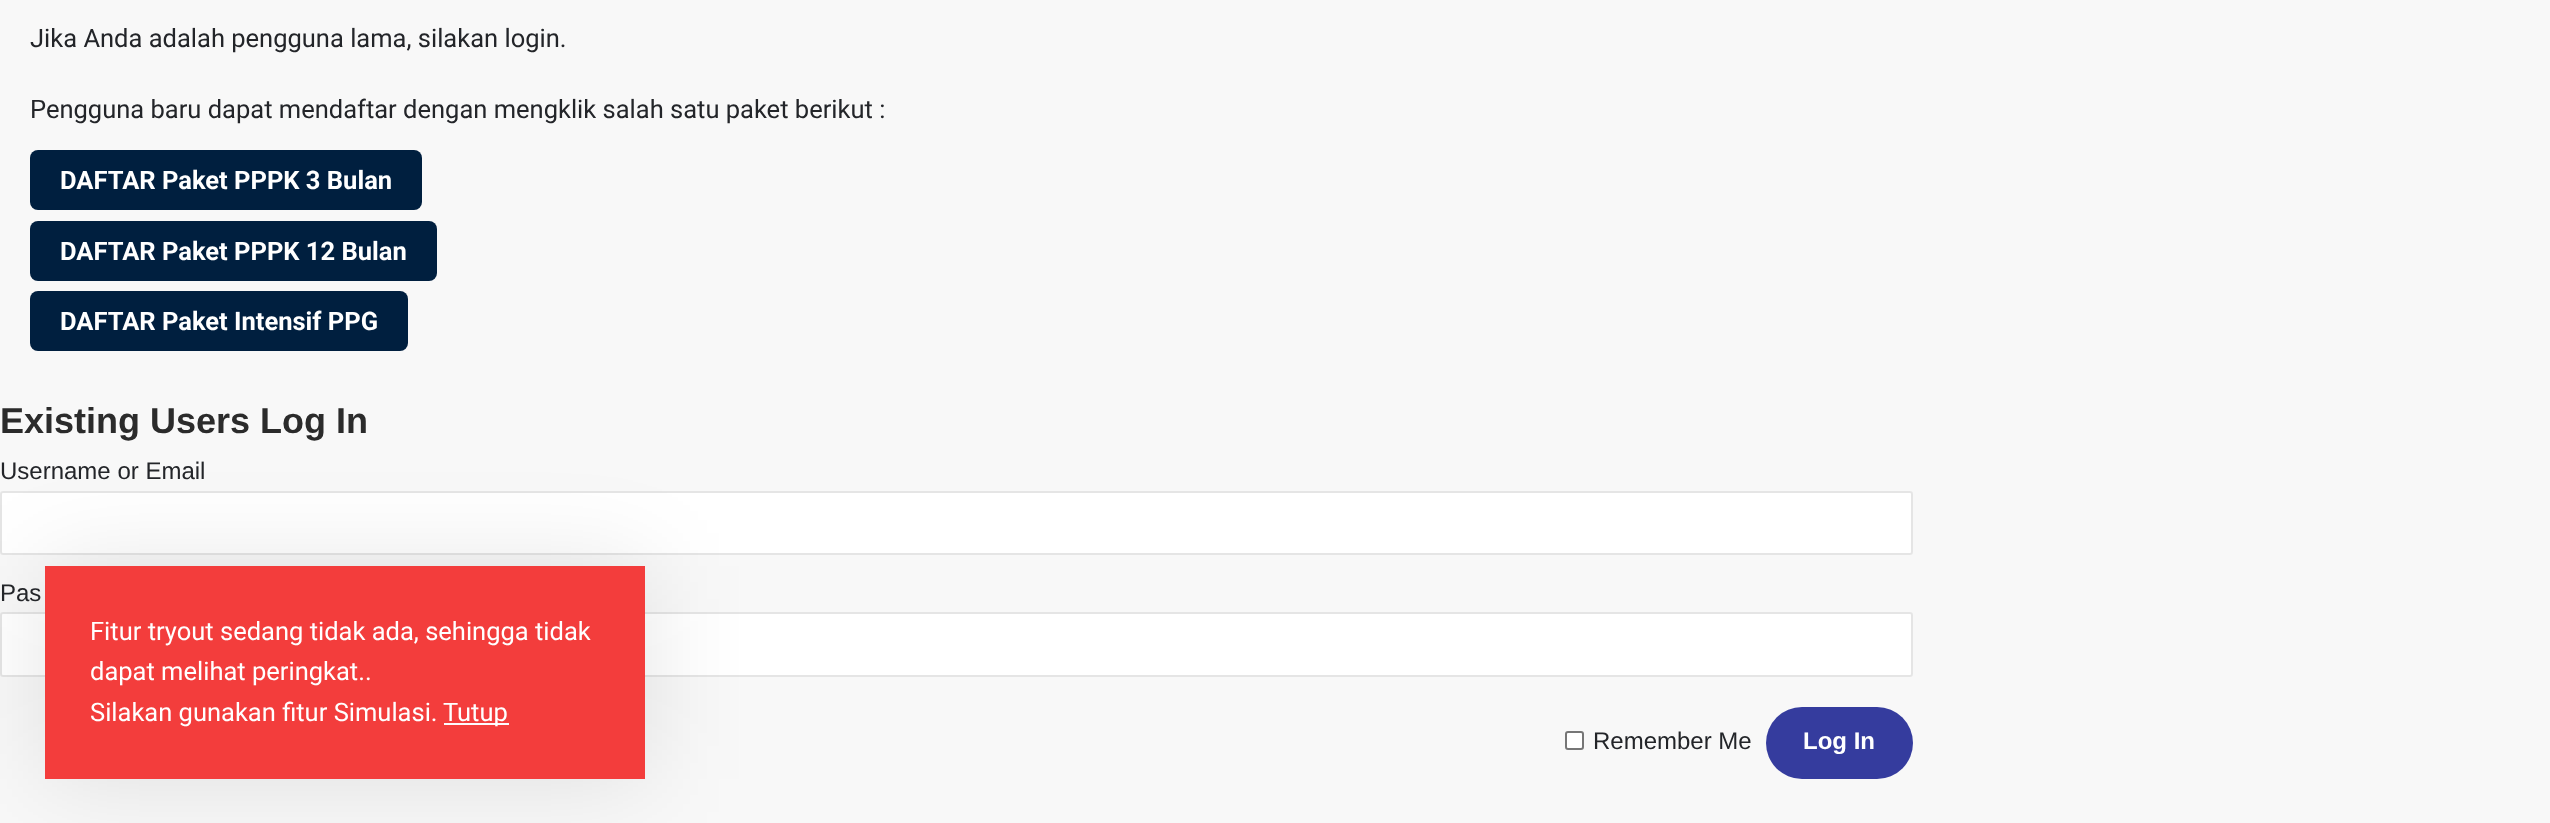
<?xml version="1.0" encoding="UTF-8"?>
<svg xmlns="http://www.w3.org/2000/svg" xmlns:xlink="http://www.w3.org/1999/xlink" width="2550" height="823">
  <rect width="100%" height="100%" fill="#f8f8f8" />
  <rect x="30" y="150" width="392" height="60" rx="8" fill="#001f3f" />
  <rect x="30" y="221" width="407" height="60" rx="8" fill="#001f3f" />
  <rect x="30" y="291" width="378" height="60" rx="8" fill="#001f3f" />
  <rect y="491" width="1913" height="64" rx="3" fill="#ffffff" />
  <rect x="1" y="492" width="1911" height="62" rx="2" fill="none" stroke="#000000" stroke-opacity="0.1" stroke-width="2" />
  <rect y="612" width="1913" height="65" rx="3" fill="#ffffff" />
  <rect x="1" y="613" width="1911" height="63" rx="2" fill="none" stroke="#000000" stroke-opacity="0.1" stroke-width="2" />
  <rect x="1566" y="732" width="17" height="17" rx="2" fill="#ffffff" stroke="#767676" stroke-width="2" />
  <rect x="1766" y="707" width="147" height="72" rx="36" fill="#353c9e" />
  <rect x="45" y="566" width="600" height="213" fill="#000000" fill-opacity="0.1" filter="blur(49px)" />
  <rect x="45" y="566" width="600" height="213" fill="#f33d3c" />
  <rect x="444" y="723" width="65" height="2" fill="#fcfbfe" />
  <text x="30" y="47" style="font-family: Roboto; font-size: 25.5px; fill: #232529">Jika Anda adalah pengguna lama, silakan login.</text>
  <text x="30" y="118" style="font-family: Roboto; font-size: 25.5px; fill: #232529">Pengguna baru dapat mendaftar dengan mengklik salah satu paket berikut :</text>
  <text x="60" y="189" style="font-family: Roboto; font-size: 25.5px; font-weight: bold; fill: #ffffff">DAFTAR Paket PPPK 3 Bulan</text>
  <text x="60" y="260" style="font-family: Roboto; font-size: 25.5px; font-weight: bold; fill: #ffffff">DAFTAR Paket PPPK 12 Bulan</text>
  <text x="60" y="330" style="font-family: Roboto; font-size: 25.5px; font-weight: bold; fill: #ffffff">DAFTAR Paket Intensif PPG</text>
  <text x="0" y="433" style="font-family: Liberation Sans; font-size: 36px; font-weight: bold; fill: #2b2b2b">Existing Users Log In</text>
  <text x="0" y="479" style="font-family: Liberation Sans; font-size: 24px; fill: #232529">Username or Email</text>
  <text x="0" y="601" style="font-family: Liberation Sans; font-size: 24px; fill: #232529">Pas</text>
  <text x="1593" y="749" style="font-family: Liberation Sans; font-size: 24px; fill: #232529">Remember Me</text>
  <text x="1803" y="749" style="font-family: Liberation Sans; font-size: 24px; font-weight: bold; fill: #ffffff">Log In</text>
  <text x="90" y="640" style="font-family: Roboto; font-size: 25.5px; fill: #ffffff">Fitur tryout sedang tidak ada, sehingga tidak</text>
  <text x="90" y="680" style="font-family: Roboto; font-size: 25.5px; fill: #ffffff">dapat melihat peringkat..</text>
  <text x="90" y="721" style="font-family: Roboto; font-size: 25.5px; fill: #ffffff">Silakan gunakan fitur Simulasi.</text>
  <text x="443" y="721" style="font-family: Roboto; font-size: 25.5px; fill: #ffffff">Tutup</text>
</svg>
